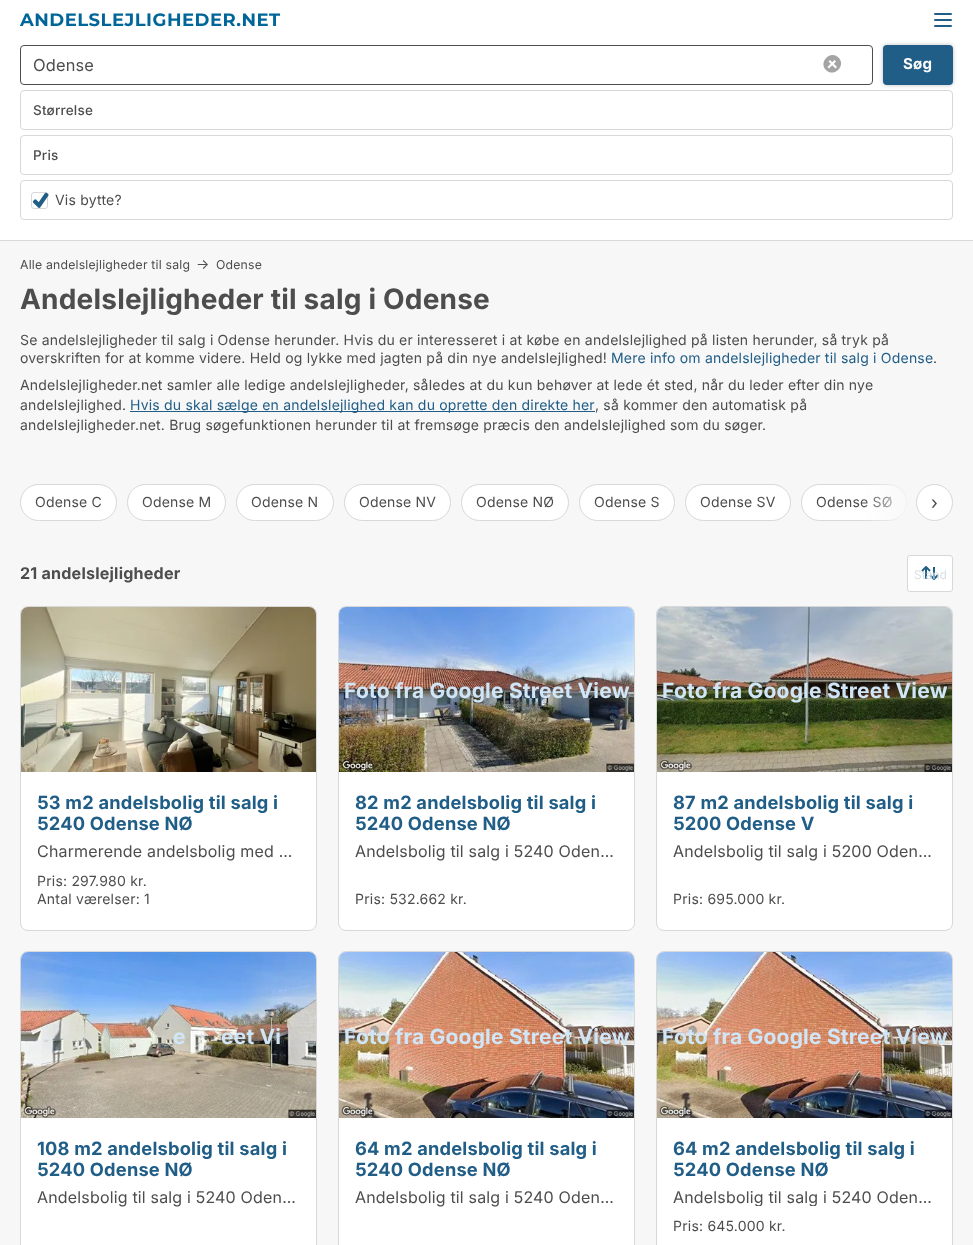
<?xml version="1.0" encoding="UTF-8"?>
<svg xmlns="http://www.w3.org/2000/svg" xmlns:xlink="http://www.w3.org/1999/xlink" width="973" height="1245">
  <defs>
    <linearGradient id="g1" gradientUnits="userSpaceOnUse" x1="861" y1="503" x2="917" y2="503"><stop offset="0" stop-color="#f7f7f7" stop-opacity="0" /><stop offset="1" stop-color="#f7f7f7" /></linearGradient>
    <clipPath id="clip1"><rect x="673" y="1188" width="263" height="18" /></clipPath>
  </defs>
  <rect width="100%" height="100%" fill="#ffffff" />
  <rect x="934" y="13" width="18" height="2" rx="1" fill="#215e87" />
  <rect x="934" y="19" width="18" height="2" rx="1" fill="#215e87" />
  <rect x="934" y="25" width="18" height="2" rx="1" fill="#215e87" />
  <rect y="241" width="973" height="1004" fill="#f7f7f7" />
  <rect y="240" width="973" height="1" fill="#d8d8d8" />
  <rect x="20.5" y="45.5" width="852" height="39" rx="3.5" fill="none" stroke="#4d4d4d" />
  <path d="M 838.5 57.5 c 8 8 -4.5 20.5 -12.5 12.5 c -8 -8 4.5 -20.5 12.5 -12.5 z" fill="#a4a4a4" />
  <path d="M 830 60 l 7 7 l -1.5 1.5 l -7 -7 z" fill="#ffffff" />
  <path d="M 834.5 60 l 1.5 1.5 l -7 7 l -1.5 -1.5 z" fill="#ffffff" />
  <rect x="883" y="45" width="70" height="40" rx="4" fill="#000000" fill-opacity="0.25" filter="blur(2px)" />
  <rect x="883" y="45" width="70" height="40" rx="4" fill="#215e87" />
  <rect x="20.5" y="90.5" width="932" height="39" rx="3.5" fill="none" stroke="#d8d8d8" />
  <rect x="20.5" y="135.5" width="932" height="39" rx="3.5" fill="none" stroke="#d8d8d8" />
  <rect x="20.5" y="180.5" width="932" height="39" rx="3.5" fill="none" stroke="#d8d8d8" />
  <rect x="31.5" y="192.5" width="16" height="16" rx="2.5" fill="none" stroke="#d8d8d8" />
  <image x="32" y="192" width="17" height="16" xlink:href="image1.png" />
  <rect x="130" y="411" width="465" height="1" fill="#215e87" />
  <rect x="20.5" y="484.5" width="96" height="36" rx="18" fill="#ffffff" stroke="#d8d8d8" />
  <rect x="127.5" y="484.5" width="98" height="36" rx="18" fill="#ffffff" stroke="#d8d8d8" />
  <rect x="236.5" y="484.5" width="97" height="36" rx="18" fill="#ffffff" stroke="#d8d8d8" />
  <rect x="344.5" y="484.5" width="106" height="36" rx="18" fill="#ffffff" stroke="#d8d8d8" />
  <rect x="461.5" y="484.5" width="107" height="36" rx="18" fill="#ffffff" stroke="#d8d8d8" />
  <rect x="579.5" y="484.5" width="95" height="36" rx="18" fill="#ffffff" stroke="#d8d8d8" />
  <rect x="685.5" y="484.5" width="105" height="36" rx="18" fill="#ffffff" stroke="#d8d8d8" />
  <rect x="801.5" y="484.5" width="105" height="36" rx="18" fill="#ffffff" stroke="#d8d8d8" />
  <circle cx="934.5" cy="502.5" r="18" fill="#ffffff" stroke="#d8d8d8" />
  <rect x="907.5" y="555.5" width="45" height="36" rx="2.5" fill="#ffffff" stroke="#d8d8d8" />
  <image x="921" y="566" width="18" height="14" xlink:href="image2.png" />
  <rect x="20.5" y="606.5" width="296" height="324" rx="7.5" fill="#ffffff" stroke="#d8d8d8" />
  <image x="21" y="607" width="295" height="165" xlink:href="image3.png" />
  <rect x="338.5" y="606.5" width="296" height="324" rx="7.5" fill="#ffffff" stroke="#d8d8d8" />
  <image x="339" y="607" width="295" height="165" xlink:href="image4.png" />
  <rect x="656.5" y="606.5" width="296" height="324" rx="7.5" fill="#ffffff" stroke="#d8d8d8" />
  <image x="657" y="607" width="295" height="165" xlink:href="image5.png" />
  <rect x="20.5" y="951.5" width="296" height="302" rx="7.5" fill="#ffffff" stroke="#d8d8d8" />
  <image x="21" y="952" width="295" height="166" xlink:href="image6.png" />
  <rect x="338.5" y="951.5" width="296" height="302" rx="7.5" fill="#ffffff" stroke="#d8d8d8" />
  <image x="339" y="952" width="295" height="166" xlink:href="image7.png" />
  <rect x="656.5" y="951.5" width="296" height="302" rx="7.5" fill="#ffffff" stroke="#d8d8d8" />
  <image x="657" y="952" width="295" height="166" xlink:href="image8.png" />
  <text x="20" y="26" style="font-family: Montserrat; font-size: 18px; font-weight: bold; letter-spacing: 0.5px; fill: #006699">ANDELSLEJLIGHEDER.NET</text>
  <text x="33" y="71" style="font-family: 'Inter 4'; font-size: 16.5px; letter-spacing: 0.2px; fill: #4d4d4d">Odense</text>
  <text x="903" y="69" style="font-family: Inter; font-size: 15px; font-weight: bold; letter-spacing: 0.2px; fill: #ffffff">Søg</text>
  <text x="33" y="115" style="font-family: Inter; font-size: 13.5px; font-weight: 500; letter-spacing: 0.2px; fill: #4d4d4d">Størrelse</text>
  <text x="33" y="160" style="font-family: Inter; font-size: 13.5px; font-weight: 500; letter-spacing: 0.2px; fill: #4d4d4d">Pris</text>
  <text x="55" y="205" style="font-family: Inter; font-size: 14px; letter-spacing: 0.2px; fill: #4d4d4d">Vis bytte?</text>
  <text x="20" y="269" style="font-family: Inter; font-size: 12.25px; letter-spacing: 0.2px; fill: #4d4d4d">Alle andelslejligheder til salg</text>
  <text x="196" y="269" style="font-family: Inter; font-size: 14px; letter-spacing: 0.2px; fill: #4d4d4d">→</text>
  <text x="216" y="269" style="font-family: Inter; font-size: 12.25px; letter-spacing: 0.2px; fill: #4d4d4d">Odense</text>
  <text x="20" y="309" style="font-family: Inter; font-size: 28px; font-weight: bold; letter-spacing: 0.2px; fill: #4d4d4d">Andelslejligheder til salg i Odense</text>
  <text x="20" y="345" style="font-family: Inter; font-size: 14px; letter-spacing: 0.2px; fill: #4d4d4d">Se andelslejligheder til salg i Odense herunder. Hvis du er interesseret i at købe en andelslejlighed på listen herunder, så tryk på</text>
  <text x="20" y="363" style="font-family: Inter; font-size: 14px; letter-spacing: 0.2px; fill: #4d4d4d">overskriften for at komme videre. Held og lykke med jagten på din nye andelslejlighed!</text>
  <text x="611" y="363" style="font-family: Inter; font-size: 14px; letter-spacing: 0.2px; fill: #215e87">Mere info om andelslejligheder til salg i Odense</text>
  <text x="933" y="363" style="font-family: Inter; font-size: 14px; letter-spacing: 0.2px; fill: #4d4d4d">.</text>
  <text x="20" y="390" style="font-family: Inter; font-size: 14px; letter-spacing: 0.2px; fill: #4d4d4d">Andelslejligheder.net samler alle ledige andelslejligheder, således at du kun behøver at lede ét sted, når du leder efter din nye</text>
  <text x="20" y="410" style="font-family: Inter; font-size: 14px; letter-spacing: 0.2px; fill: #4d4d4d">andelslejlighed.</text>
  <text x="130" y="410" style="font-family: Inter; font-size: 14px; letter-spacing: 0.2px; fill: #215e87">Hvis du skal sælge en andelslejlighed kan du oprette den direkte her</text>
  <text x="595" y="410" style="font-family: Inter; font-size: 14px; letter-spacing: 0.2px; fill: #4d4d4d">, så kommer den automatisk på</text>
  <text x="20" y="430" style="font-family: Inter; font-size: 14px; letter-spacing: 0.2px; fill: #4d4d4d">andelslejligheder.net. Brug søgefunktionen herunder til at fremsøge præcis den andelslejlighed som du søger.</text>
  <text x="35" y="507" style="font-family: Inter; font-size: 14px; letter-spacing: 0.2px; fill: #4d4d4d">Odense C</text>
  <text x="142" y="507" style="font-family: Inter; font-size: 14px; letter-spacing: 0.2px; fill: #4d4d4d">Odense M</text>
  <text x="251" y="507" style="font-family: Inter; font-size: 14px; letter-spacing: 0.2px; fill: #4d4d4d">Odense N</text>
  <text x="359" y="507" style="font-family: Inter; font-size: 14px; letter-spacing: 0.2px; fill: #4d4d4d">Odense NV</text>
  <text x="476" y="507" style="font-family: Inter; font-size: 14px; letter-spacing: 0.2px; fill: #4d4d4d">Odense NØ</text>
  <text x="594" y="507" style="font-family: Inter; font-size: 14px; letter-spacing: 0.2px; fill: #4d4d4d">Odense S</text>
  <text x="700" y="507" style="font-family: Inter; font-size: 14px; letter-spacing: 0.2px; fill: #4d4d4d">Odense SV</text>
  <text x="816" y="507" style="font-family: Inter; font-size: 14px; letter-spacing: 0.2px; fill: #4d4d4d">Odense SØ</text>
  <rect x="862" y="484" width="45" height="37" fill="url(#g1)" />
  <text x="931" y="509" style="font-family: 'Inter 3'; font-size: 18.25px; letter-spacing: 0.2px; fill: #4d4d4d">›</text>
  <text x="20" y="579" style="font-family: Inter; font-size: 16.1px; font-weight: bold; letter-spacing: 0.2px; fill: #4d4d4d">21 andelslejligheder</text>
  <text x="914" y="579" style="font-family: Inter; font-size: 12px; fill: #d6e2e9">Stand</text>
  <text x="37" y="809" style="font-family: Inter; font-size: 18.25px; font-weight: bold; letter-spacing: 0.2px; fill: #215e87">53 m2 andelsbolig til salg i</text>
  <text x="37" y="830" style="font-family: Inter; font-size: 18.25px; font-weight: bold; letter-spacing: 0.2px; fill: #215e87">5240 Odense NØ</text>
  <text x="37" y="857" style="font-family: 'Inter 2'; font-size: 16.1px; letter-spacing: 0.2px; fill: #4d4d4d">Charmerende andelsbolig med …</text>
  <text x="37" y="886" style="font-family: Inter; font-size: 14px; letter-spacing: 0.2px; fill: #4d4d4d">Pris: 297.980 kr.</text>
  <text x="37" y="904" style="font-family: Inter; font-size: 14px; letter-spacing: 0.2px; fill: #4d4d4d">Antal værelser: 1</text>
  <text x="344" y="698" style="font-family: Inter; font-size: 21px; font-weight: bold; letter-spacing: 0.2px; fill: #d0e6f7">Foto fra Google Street View</text>
  <text x="355" y="809" style="font-family: Inter; font-size: 18.25px; font-weight: bold; letter-spacing: 0.2px; fill: #215e87">82 m2 andelsbolig til salg i</text>
  <text x="355" y="830" style="font-family: Inter; font-size: 18.25px; font-weight: bold; letter-spacing: 0.2px; fill: #215e87">5240 Odense NØ</text>
  <text x="355" y="857" style="font-family: 'Inter 2'; font-size: 16.1px; letter-spacing: 0.2px; fill: #4d4d4d">Andelsbolig til salg i 5240 Oden…</text>
  <text x="355" y="904" style="font-family: Inter; font-size: 14px; letter-spacing: 0.2px; fill: #4d4d4d">Pris: 532.662 kr.</text>
  <text x="662" y="698" style="font-family: Inter; font-size: 21px; font-weight: bold; letter-spacing: 0.2px; fill: #d0e6f7">Foto fra Google Street View</text>
  <text x="673" y="809" style="font-family: Inter; font-size: 18.25px; font-weight: bold; letter-spacing: 0.2px; fill: #215e87">87 m2 andelsbolig til salg i</text>
  <text x="673" y="830" style="font-family: Inter; font-size: 18.25px; font-weight: bold; letter-spacing: 0.2px; fill: #215e87">5200 Odense V</text>
  <text x="673" y="857" style="font-family: 'Inter 2'; font-size: 16.1px; letter-spacing: 0.2px; fill: #4d4d4d">Andelsbolig til salg i 5200 Oden…</text>
  <text x="673" y="904" style="font-family: Inter; font-size: 14px; letter-spacing: 0.2px; fill: #4d4d4d">Pris: 695.000 kr.</text>
  <text x="173" y="1044" style="font-family: Inter; font-size: 21px; font-weight: bold; letter-spacing: 0.2px; fill: #d0e6f7">e</text>
  <text x="221" y="1044" style="font-family: Inter; font-size: 21px; font-weight: bold; letter-spacing: 0.2px; fill: #d0e6f7">eet Vi</text>
  <text x="37" y="1155" style="font-family: Inter; font-size: 18.25px; font-weight: bold; letter-spacing: 0.2px; fill: #215e87">108 m2 andelsbolig til salg i</text>
  <text x="37" y="1176" style="font-family: Inter; font-size: 18.25px; font-weight: bold; letter-spacing: 0.2px; fill: #215e87">5240 Odense NØ</text>
  <text x="37" y="1203" style="font-family: 'Inter 2'; font-size: 16.1px; letter-spacing: 0.2px; fill: #4d4d4d">Andelsbolig til salg i 5240 Oden…</text>
  <text x="344" y="1044" style="font-family: Inter; font-size: 21px; font-weight: bold; letter-spacing: 0.2px; fill: #d0e6f7">Foto fra Google Street View</text>
  <text x="355" y="1155" style="font-family: Inter; font-size: 18.25px; font-weight: bold; letter-spacing: 0.2px; fill: #215e87">64 m2 andelsbolig til salg i</text>
  <text x="355" y="1176" style="font-family: Inter; font-size: 18.25px; font-weight: bold; letter-spacing: 0.2px; fill: #215e87">5240 Odense NØ</text>
  <text x="355" y="1203" style="font-family: 'Inter 2'; font-size: 16.1px; letter-spacing: 0.2px; fill: #4d4d4d">Andelsbolig til salg i 5240 Oden…</text>
  <text x="662" y="1044" style="font-family: Inter; font-size: 21px; font-weight: bold; letter-spacing: 0.2px; fill: #d0e6f7">Foto fra Google Street View</text>
  <text x="673" y="1155" style="font-family: Inter; font-size: 18.25px; font-weight: bold; letter-spacing: 0.2px; fill: #215e87">64 m2 andelsbolig til salg i</text>
  <text x="673" y="1176" style="font-family: Inter; font-size: 18.25px; font-weight: bold; letter-spacing: 0.2px; fill: #215e87">5240 Odense NØ</text>
  <g clip-path="url(#clip1)">
    <text x="673" y="1203" style="font-family: 'Inter 2'; font-size: 16.1px; letter-spacing: 0.2px; fill: #4d4d4d">Andelsbolig til salg i 5240 Oden…</text>
  </g>
  <text x="673" y="1231" style="font-family: Inter; font-size: 14px; letter-spacing: 0.2px; fill: #4d4d4d">Pris: 645.000 kr.</text>
</svg>
